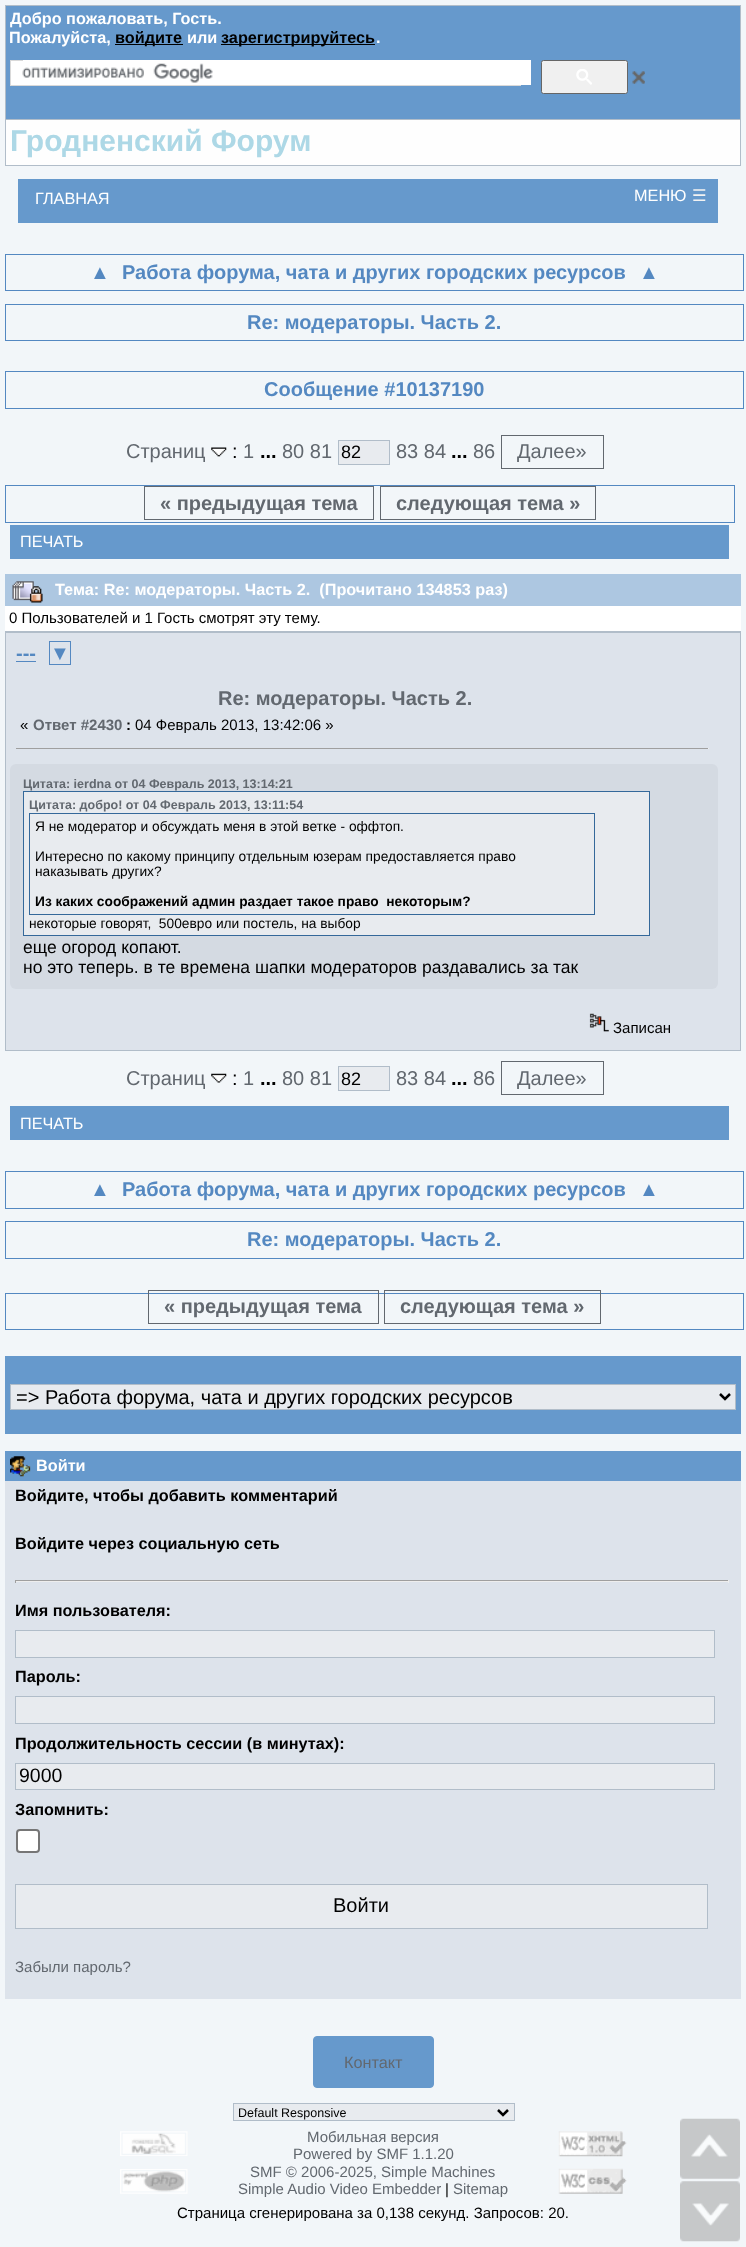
<?xml version="1.0" encoding="UTF-8"?>
<svg xmlns="http://www.w3.org/2000/svg" xmlns:xlink="http://www.w3.org/1999/xlink" width="746" height="2247">
  <rect width="100%" height="100%" fill="#f2f6f9" />
  <rect x="5" y="5" width="736" height="161" fill="#b1bdc9" />
  <rect x="6" y="6" width="734" height="113" fill="#6699cc" />
  <rect x="115" y="44" width="68" height="1" fill="#000000" />
  <rect x="221" y="44" width="154" height="1" fill="#000000" />
  <rect x="11" y="61" width="12" height="24" fill="#ffffff" />
  <rect x="10.5" y="60.5" width="510" height="25" fill="none" stroke="#d9d9d9" />
  <rect x="23" y="60" width="508" height="25" fill="#ffffff" />
  <image x="22" y="63" width="191" height="20" xlink:href="image1.png" />
  <rect x="541.5" y="60.5" width="86" height="33" rx="2" fill="#f0f0f0" stroke="#666666" />
  <image x="576" y="69" width="16" height="16" xlink:href="image2.png" />
  <image x="632" y="71" width="13" height="13" xlink:href="image3.png" />
  <rect x="6" y="120" width="734" height="45" fill="#fefefe" />
  <rect x="18" y="179" width="700" height="44" fill="#6699cc" />
  <rect x="5.5" y="254.5" width="738" height="36" fill="none" stroke="#5488c1" />
  <rect x="5.5" y="304.5" width="738" height="36" fill="none" stroke="#5488c1" />
  <rect x="5.5" y="371.5" width="738" height="37" fill="none" stroke="#5488c1" />
  <image x="211" y="447" width="16" height="10" xlink:href="image4.png" />
  <rect x="338.5" y="440.5" width="51" height="24" fill="#e8ebef" stroke="#b1bdc9" />
  <rect x="501" y="435" width="103" height="1" fill="#62686f" />
  <rect x="501" y="468" width="75" height="1" fill="#62686f" />
  <rect x="501" y="435" width="1" height="34" fill="#62686f" />
  <rect x="603" y="435" width="1" height="34" fill="#62686f" />
  <rect x="576" y="468" width="28" height="1" fill="#62686f" />
  <rect x="5.5" y="485.5" width="729" height="37" fill="none" stroke="#5488c1" />
  <rect x="144.5" y="486.5" width="229" height="33" fill="none" stroke="#62686f" />
  <rect x="380.5" y="486.5" width="215" height="33" fill="none" stroke="#62686f" />
  <rect x="10" y="525" width="719" height="34" fill="#6699cc" />
  <rect x="5" y="606" width="736" height="25" fill="#ffffff" />
  <rect x="5" y="574" width="736" height="32" fill="#adc7e1" />
  <image x="12" y="581" width="31" height="22" xlink:href="image5.png" />
  <rect x="5" y="631" width="736" height="420" fill="#b1bdc9" />
  <rect x="6" y="633" width="734" height="417" fill="#dde3eb" />
  <rect x="16" y="661" width="20" height="1" fill="#5488c1" />
  <rect x="49.5" y="641.5" width="21" height="23" fill="none" stroke="#5488c1" />
  <rect x="16" y="748" width="693" height="1" fill="#9f9f9f" />
  <rect x="708" y="748" width="1" height="1" fill="#eeeeee" />
  <rect x="10" y="764" width="708" height="225" rx="6" fill="#d4dae2" />
  <rect x="23.5" y="791.5" width="626" height="144" fill="#e8ebef" stroke="#34689a" />
  <rect x="29.5" y="813.5" width="565" height="101" fill="none" stroke="#34689a" />
  <image x="589" y="1013" width="20" height="19" xlink:href="image6.png" />
  <image x="211" y="1073" width="16" height="10" xlink:href="image7.png" />
  <rect x="338.5" y="1066.5" width="51" height="24" fill="#e8ebef" stroke="#b1bdc9" />
  <rect x="501" y="1061" width="103" height="1" fill="#62686f" />
  <rect x="501" y="1094" width="75" height="1" fill="#62686f" />
  <rect x="501" y="1061" width="1" height="34" fill="#62686f" />
  <rect x="603" y="1061" width="1" height="34" fill="#62686f" />
  <rect x="576" y="1094" width="28" height="1" fill="#62686f" />
  <rect x="10" y="1106" width="719" height="34" fill="#6699cc" />
  <rect x="5.5" y="1171.5" width="738" height="37" fill="none" stroke="#5488c1" />
  <rect x="5.5" y="1221.5" width="738" height="37" fill="none" stroke="#5488c1" />
  <rect x="5.5" y="1293.5" width="738" height="36" fill="none" stroke="#5488c1" />
  <rect x="148.5" y="1290.5" width="230" height="33" fill="none" stroke="#62686f" />
  <rect x="384.5" y="1290.5" width="216" height="33" fill="none" stroke="#62686f" />
  <rect x="5" y="1356" width="736" height="78" fill="#6699cc" />
  <rect x="10.5" y="1384.5" width="725" height="25" fill="#e8ebef" stroke="#b1bdc9" />
  <path d="M 720 1394 l 5 5 l 5 -5" fill="none" stroke="#000000" stroke-width="2.5" />
  <rect x="5" y="1451" width="736" height="30" fill="#6699cc" />
  <image x="10" y="1456" width="21" height="21" xlink:href="image8.png" />
  <rect x="5" y="1481" width="736" height="518" fill="#dde3eb" />
  <rect x="15" y="1580" width="714" height="1" fill="#9f9f9f" />
  <rect x="728" y="1580" width="1" height="3" fill="#eeeeee" />
  <rect x="15" y="1581" width="714" height="1" fill="#eeeeee" />
  <rect x="15" y="1580" width="1" height="3" fill="#9f9f9f" />
  <rect x="15.5" y="1630.5" width="699" height="27" fill="#e8ebef" stroke="#b1bdc9" />
  <rect x="15.5" y="1696.5" width="699" height="27" fill="#e8ebef" stroke="#b1bdc9" />
  <rect x="15.5" y="1763.5" width="699" height="26" fill="#e8ebef" stroke="#b1bdc9" />
  <rect x="17" y="1830" width="22" height="22" rx="3" fill="#ffffff" stroke="#767676" stroke-width="2" />
  <rect x="15.5" y="1884.5" width="692" height="44" fill="#e8ebef" stroke="#b1bdc9" />
  <rect x="313.5" y="2036.5" width="120" height="51" rx="3.5" fill="#6699cc" stroke="#6699cc" />
  <rect x="233.5" y="2103.5" width="281" height="17" fill="#e8ebef" stroke="#b1bdc9" />
  <path d="M 498 2110 l 5 5 l 5 -5" fill="none" stroke="#000000" stroke-width="2.5" />
  <image x="120" y="2131" width="68" height="25" xlink:href="image9.png" />
  <image x="120" y="2169" width="68" height="25" xlink:href="image10.png" />
  <image x="558" y="2131" width="69" height="26" xlink:href="image11.png" />
  <image x="558" y="2168" width="69" height="26" xlink:href="image12.png" />
  <image x="680" y="2118" width="60" height="61" xlink:href="image13.png" />
  <image x="680" y="2181" width="60" height="61" xlink:href="image14.png" />
  <text x="10" y="24" style="font-family: Liberation Sans; font-size: 16.25px; font-weight: bold; fill: #ffffff">Добро пожаловать, Гость.</text>
  <text x="9" y="43" style="font-family: Liberation Sans; font-size: 16.25px; font-weight: bold; fill: #ffffff">Пожалуйста,</text>
  <text x="115" y="43" style="font-family: Liberation Sans; font-size: 16.25px; font-weight: bold; fill: #000000">войдите</text>
  <text x="187" y="43" style="font-family: Liberation Sans; font-size: 16.25px; font-weight: bold; fill: #ffffff">или</text>
  <text x="221" y="43" style="font-family: Liberation Sans; font-size: 16.25px; font-weight: bold; fill: #000000">зарегистрируйтесь</text>
  <text x="376" y="43" style="font-family: Liberation Sans; font-size: 16.25px; font-weight: bold; fill: #ffffff">.</text>
  <text x="10" y="151" style="font-family: Liberation Sans; font-size: 30px; font-weight: bold; fill: #add8e6">Гродненский Форум</text>
  <text x="35" y="204" style="font-family: Liberation Sans; font-size: 16.25px; fill: #ffffff">ГЛАВНАЯ</text>
  <text x="634" y="201" style="font-family: Liberation Sans; font-size: 16.25px; fill: #ffffff">МЕНЮ</text>
  <text x="692" y="201" style="font-family: DejaVu Sans; font-size: 16.25px; fill: #f2f2f2">☰</text>
  <text x="90" y="279" style="font-family: Liberation Sans; font-size: 20px; font-weight: bold; fill: #5488c1">▲</text>
  <text x="122" y="279" style="font-family: Liberation Sans; font-size: 20px; font-weight: bold; fill: #5488c1">Работа форума, чата и других городских ресурсов</text>
  <text x="639" y="279" style="font-family: Liberation Sans; font-size: 20px; font-weight: bold; fill: #5488c1">▲</text>
  <text x="247" y="329" style="font-family: Liberation Sans; font-size: 20px; font-weight: bold; fill: #5488c1">Re: модераторы. Часть 2.</text>
  <text x="264" y="396" style="font-family: Liberation Sans; font-size: 20px; font-weight: bold; fill: #5488c1">Сообщение #10137190</text>
  <text x="126" y="458" style="font-family: Liberation Sans; font-size: 20px; fill: #62686f">Страниц</text>
  <text x="232" y="458" style="font-family: Liberation Sans; font-size: 20px; fill: #000000">:</text>
  <text x="243" y="458" style="font-family: Liberation Sans; font-size: 20px; fill: #62686f">1</text>
  <text x="260" y="458" style="font-family: Liberation Sans; font-size: 20px; font-weight: bold; fill: #000000">...</text>
  <text x="282" y="458" style="font-family: Liberation Sans; font-size: 20px; fill: #62686f">80 81</text>
  <text x="341" y="458" style="font-family: Liberation Sans; font-size: 18px; fill: #000000">82</text>
  <text x="396" y="458" style="font-family: Liberation Sans; font-size: 20px; fill: #62686f">83 84</text>
  <text x="451" y="458" style="font-family: Liberation Sans; font-size: 20px; font-weight: bold; fill: #000000">...</text>
  <text x="473" y="458" style="font-family: Liberation Sans; font-size: 20px; fill: #62686f">86</text>
  <text x="517" y="458" style="font-family: Liberation Sans; font-size: 20px; fill: #62686f">Далее»</text>
  <text x="160" y="510" style="font-family: Liberation Sans; font-size: 20px; font-weight: bold; fill: #62686f">« предыдущая тема</text>
  <text x="396" y="510" style="font-family: Liberation Sans; font-size: 20px; font-weight: bold; fill: #62686f">следующая тема »</text>
  <text x="20" y="547" style="font-family: Liberation Sans; font-size: 16.25px; fill: #ffffff">ПЕЧАТЬ</text>
  <text x="55" y="595" style="font-family: Liberation Sans; font-size: 16.25px; font-weight: bold; fill: #ffffff" xml:space="preserve">Тема: Re: модераторы. Часть 2.  (Прочитано 134853 раз)</text>
  <text x="9" y="623" style="font-family: Liberation Sans; font-size: 15px; fill: #000000">0 Пользователей и 1 Гость смотрят эту тему.</text>
  <text x="16" y="660" style="font-family: Liberation Sans; font-size: 20px; font-weight: bold; fill: #5488c1">---</text>
  <text x="50" y="660" style="font-family: Liberation Sans; font-size: 20px; font-weight: bold; fill: #5488c1">▼</text>
  <text x="218" y="705" style="font-family: Liberation Sans; font-size: 20px; font-weight: bold; fill: #62686f">Re: модераторы. Часть 2.</text>
  <text x="20" y="730" style="font-family: Liberation Sans; font-size: 15px; fill: #000000">«</text>
  <text x="33" y="730" style="font-family: Liberation Sans; font-size: 15px; font-weight: bold; fill: #62686f">Ответ #2430</text>
  <text x="126" y="730" style="font-family: Liberation Sans; font-size: 15px; font-weight: bold; fill: #000000">:</text>
  <text x="135" y="730" style="font-family: Liberation Sans; font-size: 15px; fill: #000000">04 Февраль 2013, 13:42:06 »</text>
  <text x="23" y="788" style="font-family: Liberation Sans; font-size: 12.5px; font-weight: bold; fill: #62686f">Цитата: ierdna от 04 Февраль 2013, 13:14:21</text>
  <text x="29" y="809" style="font-family: Liberation Sans; font-size: 12.5px; font-weight: bold; fill: #62686f">Цитата: добро! от 04 Февраль 2013, 13:11:54</text>
  <text x="35" y="831" style="font-family: Liberation Sans; font-size: 13.75px; fill: #000000">Я не модератор и обсуждать меня в этой ветке - оффтоп.</text>
  <text x="35" y="861" style="font-family: Liberation Sans; font-size: 13.75px; fill: #000000">Интересно по какому принципу отдельным юзерам предоставляется право</text>
  <text x="35" y="876" style="font-family: Liberation Sans; font-size: 13.75px; fill: #000000">наказывать других?</text>
  <text x="35" y="906" style="font-family: Liberation Sans; font-size: 13.75px; font-weight: bold; fill: #000000" xml:space="preserve">Из каких соображений админ раздает такое право  некоторым?</text>
  <text x="29" y="928" style="font-family: Liberation Sans; font-size: 13.75px; fill: #000000" xml:space="preserve">некоторые говорят,  500евро или постель, на выбор</text>
  <text x="23" y="953" style="font-family: Liberation Sans; font-size: 17.5px; fill: #000000">еще огород копают.</text>
  <text x="23" y="973" style="font-family: Liberation Sans; font-size: 17.5px; fill: #000000">но это теперь. в те времена шапки модераторов раздавались за так</text>
  <text x="613" y="1033" style="font-family: Liberation Sans; font-size: 15px; fill: #000000">Записан</text>
  <text x="126" y="1085" style="font-family: Liberation Sans; font-size: 20px; fill: #62686f">Страниц</text>
  <text x="232" y="1085" style="font-family: Liberation Sans; font-size: 20px; fill: #000000">:</text>
  <text x="243" y="1085" style="font-family: Liberation Sans; font-size: 20px; fill: #62686f">1</text>
  <text x="260" y="1085" style="font-family: Liberation Sans; font-size: 20px; font-weight: bold; fill: #000000">...</text>
  <text x="282" y="1085" style="font-family: Liberation Sans; font-size: 20px; fill: #62686f">80 81</text>
  <text x="341" y="1085" style="font-family: Liberation Sans; font-size: 18px; fill: #000000">82</text>
  <text x="396" y="1085" style="font-family: Liberation Sans; font-size: 20px; fill: #62686f">83 84</text>
  <text x="451" y="1085" style="font-family: Liberation Sans; font-size: 20px; font-weight: bold; fill: #000000">...</text>
  <text x="473" y="1085" style="font-family: Liberation Sans; font-size: 20px; fill: #62686f">86</text>
  <text x="517" y="1085" style="font-family: Liberation Sans; font-size: 20px; fill: #62686f">Далее»</text>
  <text x="20" y="1129" style="font-family: Liberation Sans; font-size: 16.25px; fill: #ffffff">ПЕЧАТЬ</text>
  <text x="90" y="1196" style="font-family: Liberation Sans; font-size: 20px; font-weight: bold; fill: #5488c1">▲</text>
  <text x="122" y="1196" style="font-family: Liberation Sans; font-size: 20px; font-weight: bold; fill: #5488c1">Работа форума, чата и других городских ресурсов</text>
  <text x="639" y="1196" style="font-family: Liberation Sans; font-size: 20px; font-weight: bold; fill: #5488c1">▲</text>
  <text x="247" y="1246" style="font-family: Liberation Sans; font-size: 20px; font-weight: bold; fill: #5488c1">Re: модераторы. Часть 2.</text>
  <text x="164" y="1313" style="font-family: Liberation Sans; font-size: 20px; font-weight: bold; fill: #62686f">« предыдущая тема</text>
  <text x="400" y="1313" style="font-family: Liberation Sans; font-size: 20px; font-weight: bold; fill: #62686f">следующая тема »</text>
  <text x="16" y="1404" style="font-family: Liberation Sans; font-size: 20px; fill: #000000">=&gt; Работа форума, чата и других городских ресурсов</text>
  <text x="36" y="1471" style="font-family: Liberation Sans; font-size: 16.25px; font-weight: bold; fill: #ffffff">Войти</text>
  <text x="15" y="1501" style="font-family: Liberation Sans; font-size: 16.25px; font-weight: bold; fill: #000000">Войдите, чтобы добавить комментарий</text>
  <text x="15" y="1549" style="font-family: Liberation Sans; font-size: 16.25px; font-weight: bold; fill: #000000">Войдите через социальную сеть</text>
  <text x="15" y="1616" style="font-family: Liberation Sans; font-size: 16.25px; font-weight: bold; fill: #000000">Имя пользователя:</text>
  <text x="15" y="1682" style="font-family: Liberation Sans; font-size: 16.25px; font-weight: bold; fill: #000000">Пароль:</text>
  <text x="15" y="1749" style="font-family: Liberation Sans; font-size: 16.25px; font-weight: bold; fill: #000000">Продолжительность сессии (в минутах):</text>
  <text x="19" y="1782" style="font-family: Liberation Sans; font-size: 19.5px; fill: #000000">9000</text>
  <text x="15" y="1815" style="font-family: Liberation Sans; font-size: 16.25px; font-weight: bold; fill: #000000">Запомнить:</text>
  <text x="333" y="1912" style="font-family: Liberation Sans; font-size: 20px; fill: #000000">Войти</text>
  <text x="15" y="1972" style="font-family: Liberation Sans; font-size: 15px; fill: #62686f">Забыли пароль?</text>
  <text x="344" y="2068" style="font-family: Liberation Sans; font-size: 16.25px; fill: #62686f">Контакт</text>
  <text x="238" y="2117" style="font-family: Liberation Sans; font-size: 12.5px; fill: #000000">Default Responsive</text>
  <text x="307" y="2142" style="font-family: Liberation Sans; font-size: 15px; fill: #62686f">Мобильная версия</text>
  <text x="293" y="2159" style="font-family: Liberation Sans; font-size: 15px; fill: #62686f">Powered by SMF 1.1.20</text>
  <text x="250" y="2177" style="font-family: Liberation Sans; font-size: 15px; fill: #62686f">SMF © 2006-2025, Simple Machines</text>
  <text x="238" y="2194" style="font-family: Liberation Sans; font-size: 15px; fill: #62686f">Simple Audio Video Embedder</text>
  <text x="445" y="2194" style="font-family: Liberation Sans; font-size: 15px; fill: #000000">|</text>
  <text x="453" y="2194" style="font-family: Liberation Sans; font-size: 15px; fill: #62686f">Sitemap</text>
  <text x="177" y="2218" style="font-family: Liberation Sans; font-size: 15px; fill: #000000">Страница сгенерирована за 0,138 секунд. Запросов: 20.</text>
</svg>
